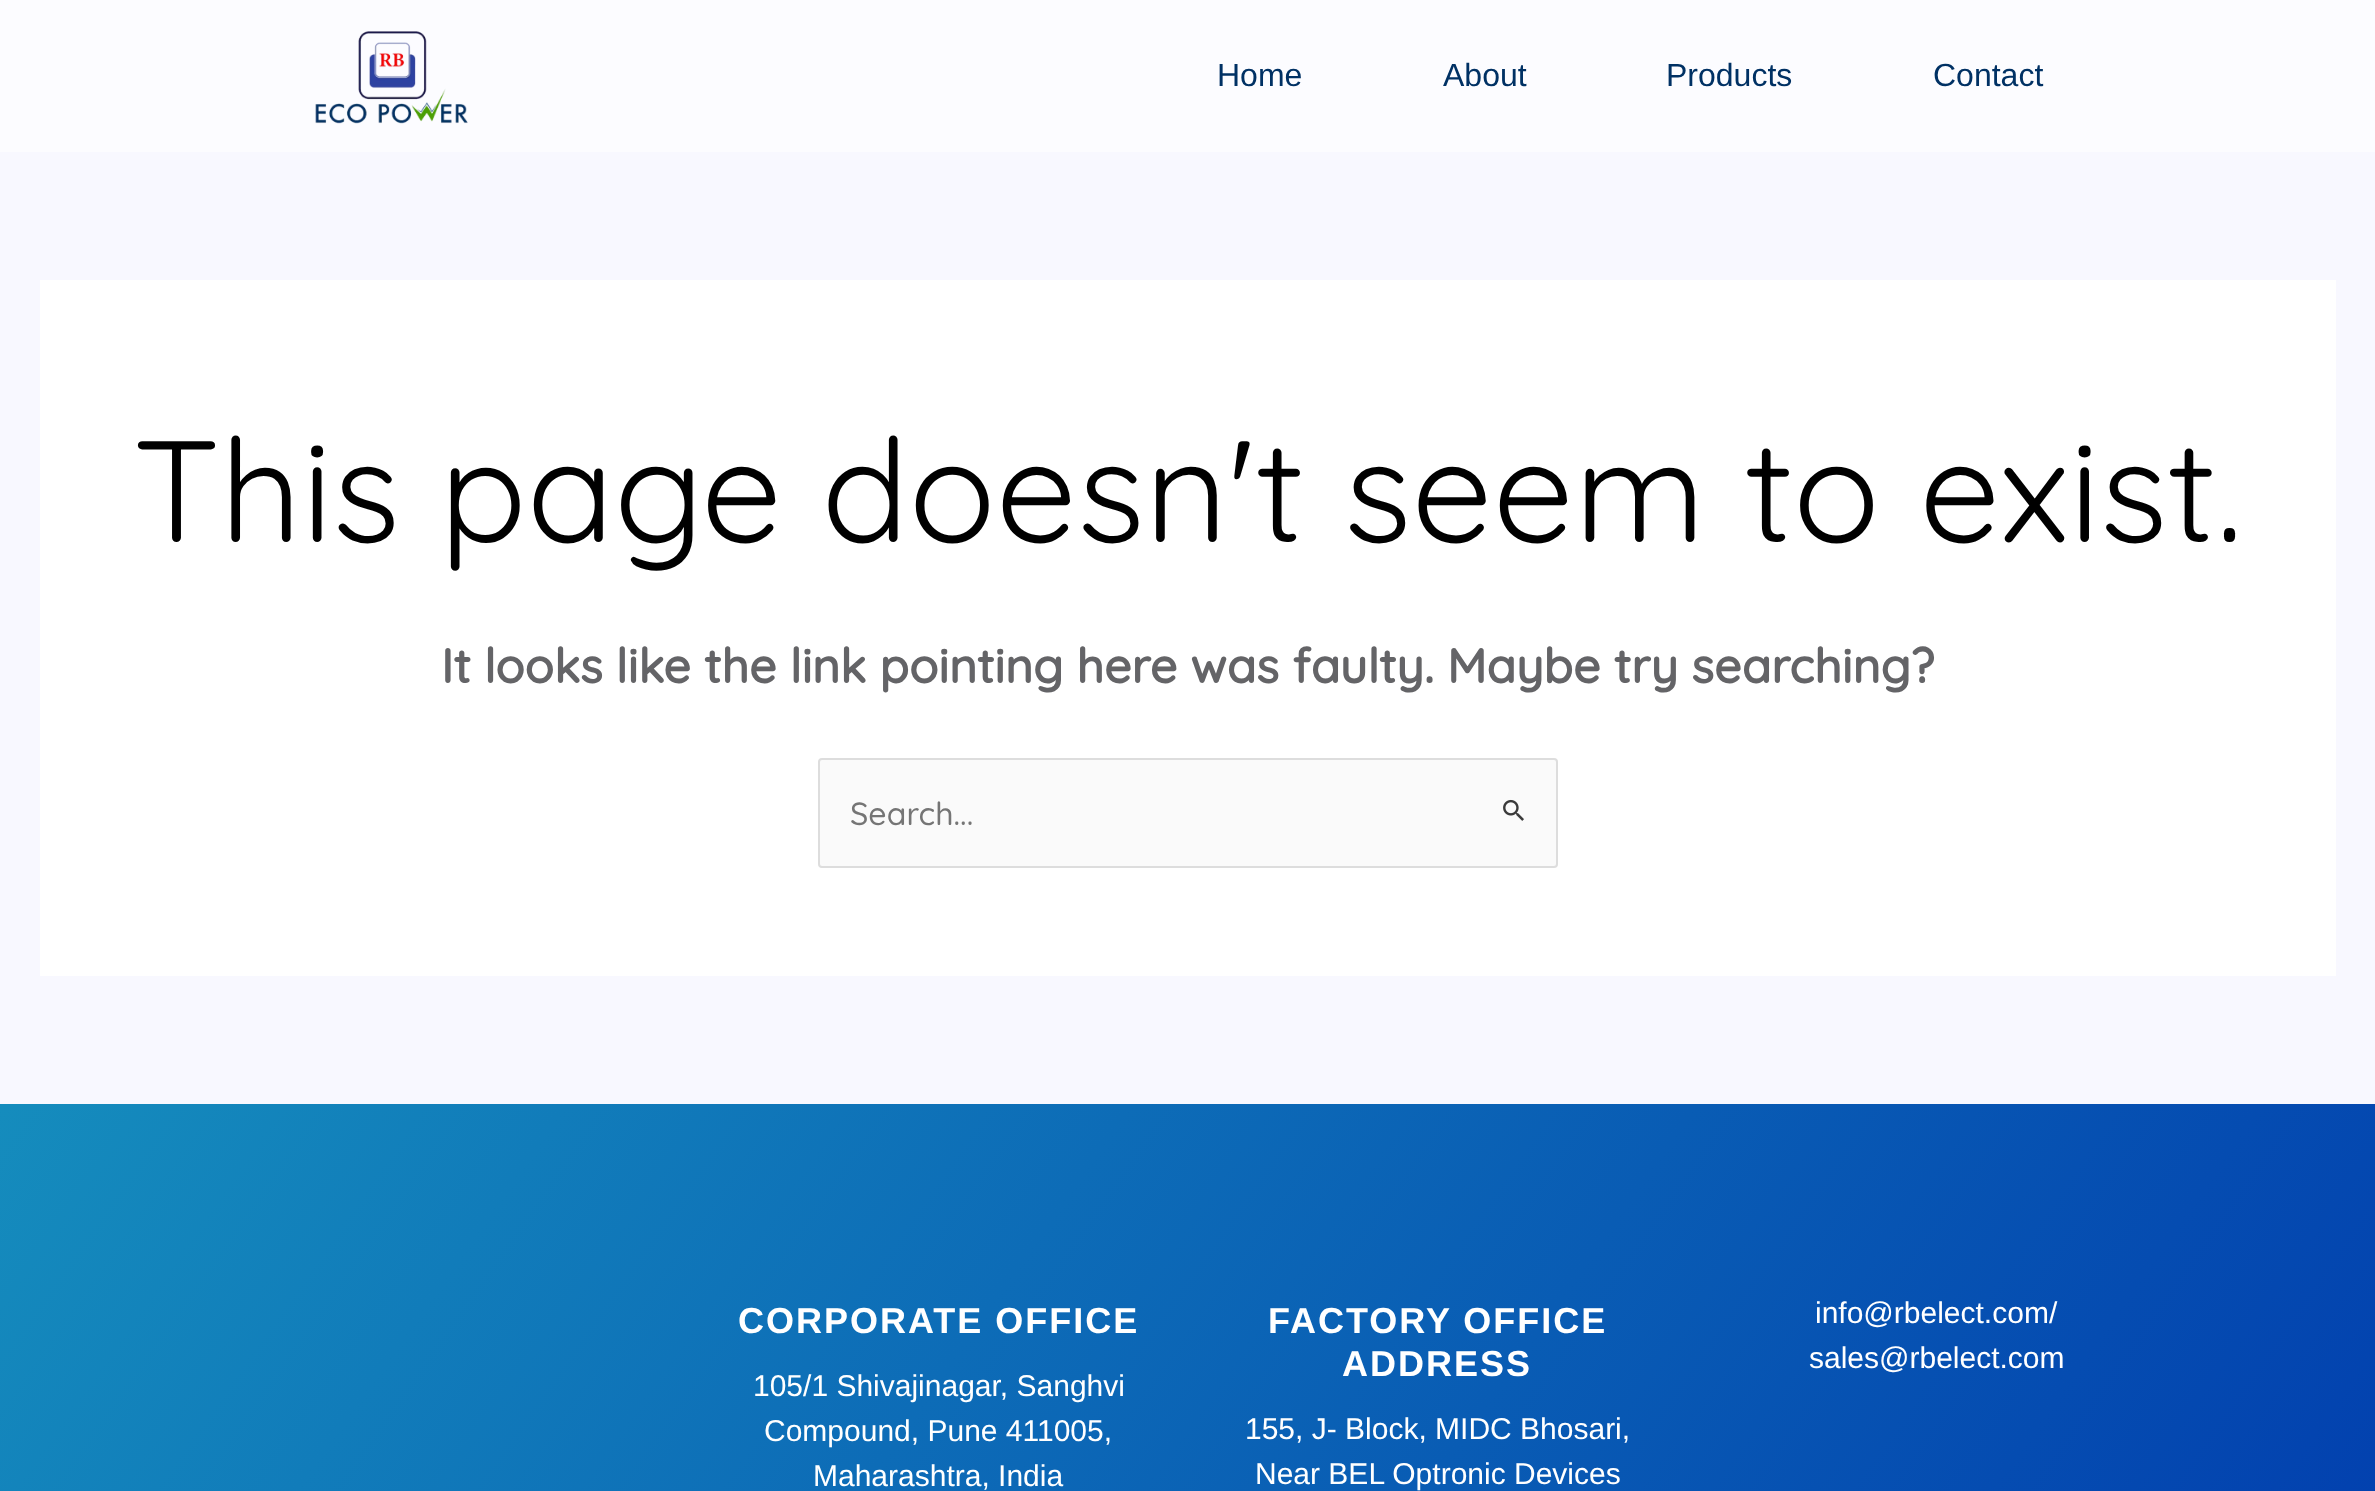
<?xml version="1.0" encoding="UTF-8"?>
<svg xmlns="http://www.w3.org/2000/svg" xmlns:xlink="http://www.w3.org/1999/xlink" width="2375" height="1491">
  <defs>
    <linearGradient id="g1" gradientUnits="userSpaceOnUse" x1="240" y1="762" x2="2136" y2="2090"><stop offset="0" stop-color="#158cbd" /><stop offset="1" stop-color="#013cae" /></linearGradient>
  </defs>
  <rect width="100%" height="100%" fill="#f8f8ff" />
  <rect width="2375" height="152" fill="#fcfcff" />
  <image x="315" y="31" width="153" height="93" xlink:href="image1.png" />
  <rect x="40" y="280" width="2296" height="696" fill="#ffffff" />
  <rect x="819" y="759" width="738" height="108" rx="3" fill="#fafafa" stroke="#dddddd" stroke-width="2" />
  <image x="1503" y="799" width="21" height="22" xlink:href="image2.png" />
  <rect y="1104" width="2375" height="387" fill="url(#g1)" />
  <text x="1217" y="86" style="font-family: Liberation Sans; font-size: 32px; fill: #003164">Home</text>
  <text x="1443" y="86" style="font-family: Liberation Sans; font-size: 32px; fill: #003164">About</text>
  <text x="1666" y="86" style="font-family: Liberation Sans; font-size: 32px; fill: #003164">Products</text>
  <text x="1933" y="86" style="font-family: Liberation Sans; font-size: 32px; fill: #003164">Contact</text>
  <text x="133" y="542" style="font-family: Quicksand; font-size: 144px; fill: #000000">This page doesn't seem to exist.</text>
  <text x="441" y="683" style="font-family: Quicksand; font-size: 48px; font-weight: bold; fill: #646467">It looks like the link pointing here was faulty. Maybe try searching?</text>
  <text x="850" y="825" style="font-family: Quicksand; font-size: 32px; font-weight: 500; fill: #757575">Search...</text>
  <text x="738" y="1333" style="font-family: Liberation Sans; font-size: 36px; font-weight: bold; letter-spacing: 2px; fill: #ffffff">CORPORATE OFFICE</text>
  <text x="753" y="1396" style="font-family: Liberation Sans; font-size: 30px; fill: #ffffff">105/1 Shivajinagar, Sanghvi</text>
  <text x="764" y="1441" style="font-family: Liberation Sans; font-size: 30px; fill: #ffffff">Compound, Pune 411005,</text>
  <text x="813" y="1486" style="font-family: Liberation Sans; font-size: 30px; fill: #ffffff">Maharashtra, India</text>
  <text x="1268" y="1333" style="font-family: Liberation Sans; font-size: 36px; font-weight: bold; letter-spacing: 2px; fill: #ffffff">FACTORY OFFICE</text>
  <text x="1342" y="1376" style="font-family: Liberation Sans; font-size: 36px; font-weight: bold; letter-spacing: 2px; fill: #ffffff">ADDRESS</text>
  <text x="1245" y="1439" style="font-family: Liberation Sans; font-size: 30px; fill: #ffffff">155, J- Block, MIDC Bhosari,</text>
  <text x="1255" y="1484" style="font-family: Liberation Sans; font-size: 30px; fill: #ffffff">Near BEL Optronic Devices</text>
  <text x="1815" y="1323" style="font-family: Liberation Sans; font-size: 30px; fill: #ffffff">info@rbelect.com/</text>
  <text x="1809" y="1368" style="font-family: Liberation Sans; font-size: 30px; fill: #ffffff">sales@rbelect.com</text>
</svg>
